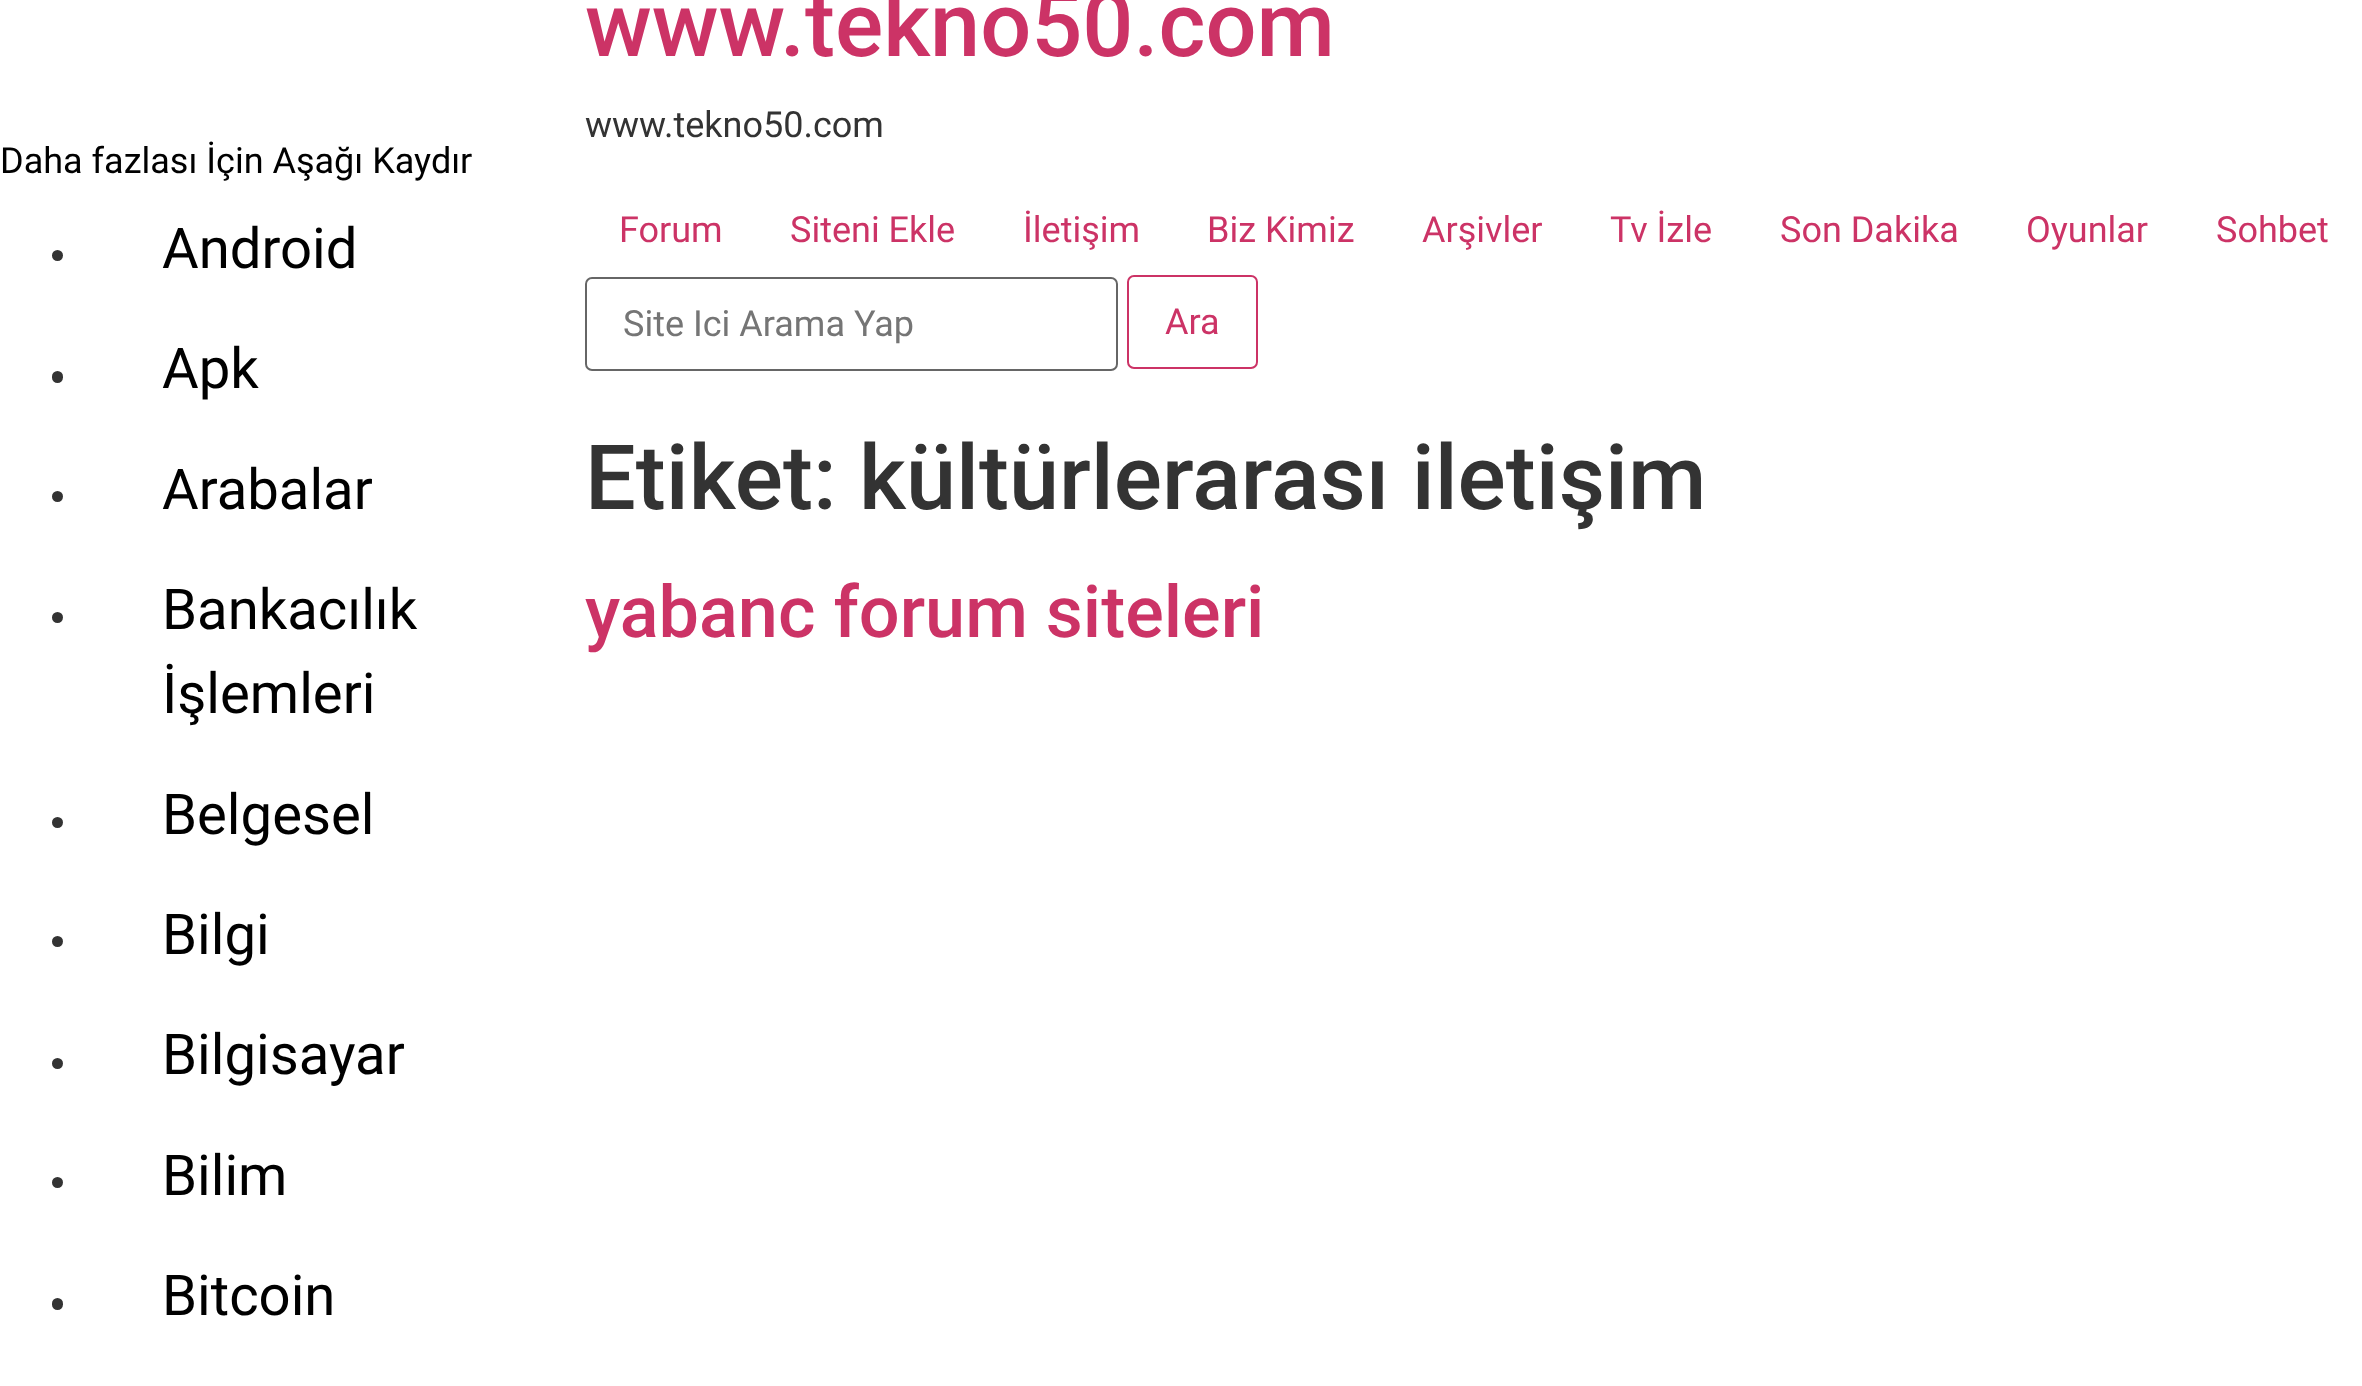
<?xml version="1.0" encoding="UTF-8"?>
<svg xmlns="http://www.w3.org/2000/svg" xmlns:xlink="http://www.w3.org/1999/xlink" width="2362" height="1386">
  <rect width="100%" height="100%" fill="#ffffff" />
  <circle cx="57.5" cy="255.5" r="5.5" fill="#333333" />
  <rect x="52" y="371" width="11" height="12" rx="5.5" fill="#333333" />
  <circle cx="57.5" cy="496.5" r="5.5" fill="#333333" />
  <circle cx="57.5" cy="617.5" r="5.5" fill="#333333" />
  <circle cx="57.5" cy="822.5" r="5.5" fill="#333333" />
  <circle cx="57.5" cy="941.5" r="5.5" fill="#333333" />
  <circle cx="57.5" cy="1063.5" r="5.5" fill="#333333" />
  <circle cx="57.5" cy="1182.5" r="5.5" fill="#333333" />
  <rect x="52" y="1298" width="11" height="12" rx="5.5" fill="#333333" />
  <rect x="586" y="278" width="531" height="92" rx="6" fill="none" stroke="#666666" stroke-width="2" />
  <rect x="1128" y="276" width="129" height="92" rx="6" fill="none" stroke="#cc3366" stroke-width="2" />
  <text x="0" y="173" style="font-family: Roboto; font-size: 36px; fill: #000000">Daha fazlası İçin Aşağı Kaydır</text>
  <text x="162" y="268" style="font-family: Roboto; font-size: 56.25px; fill: #000000">Android</text>
  <text x="162" y="388" style="font-family: Roboto; font-size: 56.25px; fill: #000000">Apk</text>
  <text x="162" y="509" style="font-family: Roboto; font-size: 56.25px; fill: #000000">Arabalar</text>
  <text x="162" y="629" style="font-family: Roboto; font-size: 56.25px; fill: #000000">Bankacılık</text>
  <text x="162" y="713" style="font-family: Roboto; font-size: 56.25px; fill: #000000">İşlemleri</text>
  <text x="162" y="834" style="font-family: Roboto; font-size: 56.25px; fill: #000000">Belgesel</text>
  <text x="162" y="954" style="font-family: Roboto; font-size: 56.25px; fill: #000000">Bilgi</text>
  <text x="162" y="1074" style="font-family: Roboto; font-size: 56.25px; fill: #000000">Bilgisayar</text>
  <text x="162" y="1195" style="font-family: Roboto; font-size: 56.25px; fill: #000000">Bilim</text>
  <text x="162" y="1315" style="font-family: Roboto; font-size: 56.25px; fill: #000000">Bitcoin</text>
  <text x="585" y="56" style="font-family: Roboto; font-size: 90px; font-weight: 500; fill: #cc3366">www.tekno50.com</text>
  <text x="585" y="137" style="font-family: Roboto; font-size: 36px; fill: #333333">www.tekno50.com</text>
  <text x="619" y="242" style="font-family: Roboto; font-size: 36px; fill: #cc3366">Forum</text>
  <text x="790" y="242" style="font-family: Roboto; font-size: 36px; fill: #cc3366">Siteni Ekle</text>
  <text x="1023" y="242" style="font-family: Roboto; font-size: 36px; fill: #cc3366">İletişim</text>
  <text x="1207" y="242" style="font-family: Roboto; font-size: 36px; fill: #cc3366">Biz Kimiz</text>
  <text x="1422" y="242" style="font-family: Roboto; font-size: 36px; fill: #cc3366">Arşivler</text>
  <text x="1610" y="242" style="font-family: Roboto; font-size: 36px; fill: #cc3366">Tv İzle</text>
  <text x="1780" y="242" style="font-family: Roboto; font-size: 36px; fill: #cc3366">Son Dakika</text>
  <text x="2026" y="242" style="font-family: Roboto; font-size: 36px; fill: #cc3366">Oyunlar</text>
  <text x="2216" y="242" style="font-family: Roboto; font-size: 36px; fill: #cc3366">Sohbet</text>
  <text x="623" y="336" style="font-family: Roboto; font-size: 36px; fill: #757575">Site Ici Arama Yap</text>
  <text x="1165" y="334" style="font-family: Roboto; font-size: 36px; fill: #cc3366">Ara</text>
  <text x="585" y="509" style="font-family: Roboto; font-size: 90px; font-weight: 500; fill: #333333">Etiket: kültürlerarası iletişim</text>
  <text x="585" y="637" style="font-family: Roboto; font-size: 72px; font-weight: 500; fill: #cc3366">yabanc forum siteleri</text>
</svg>
